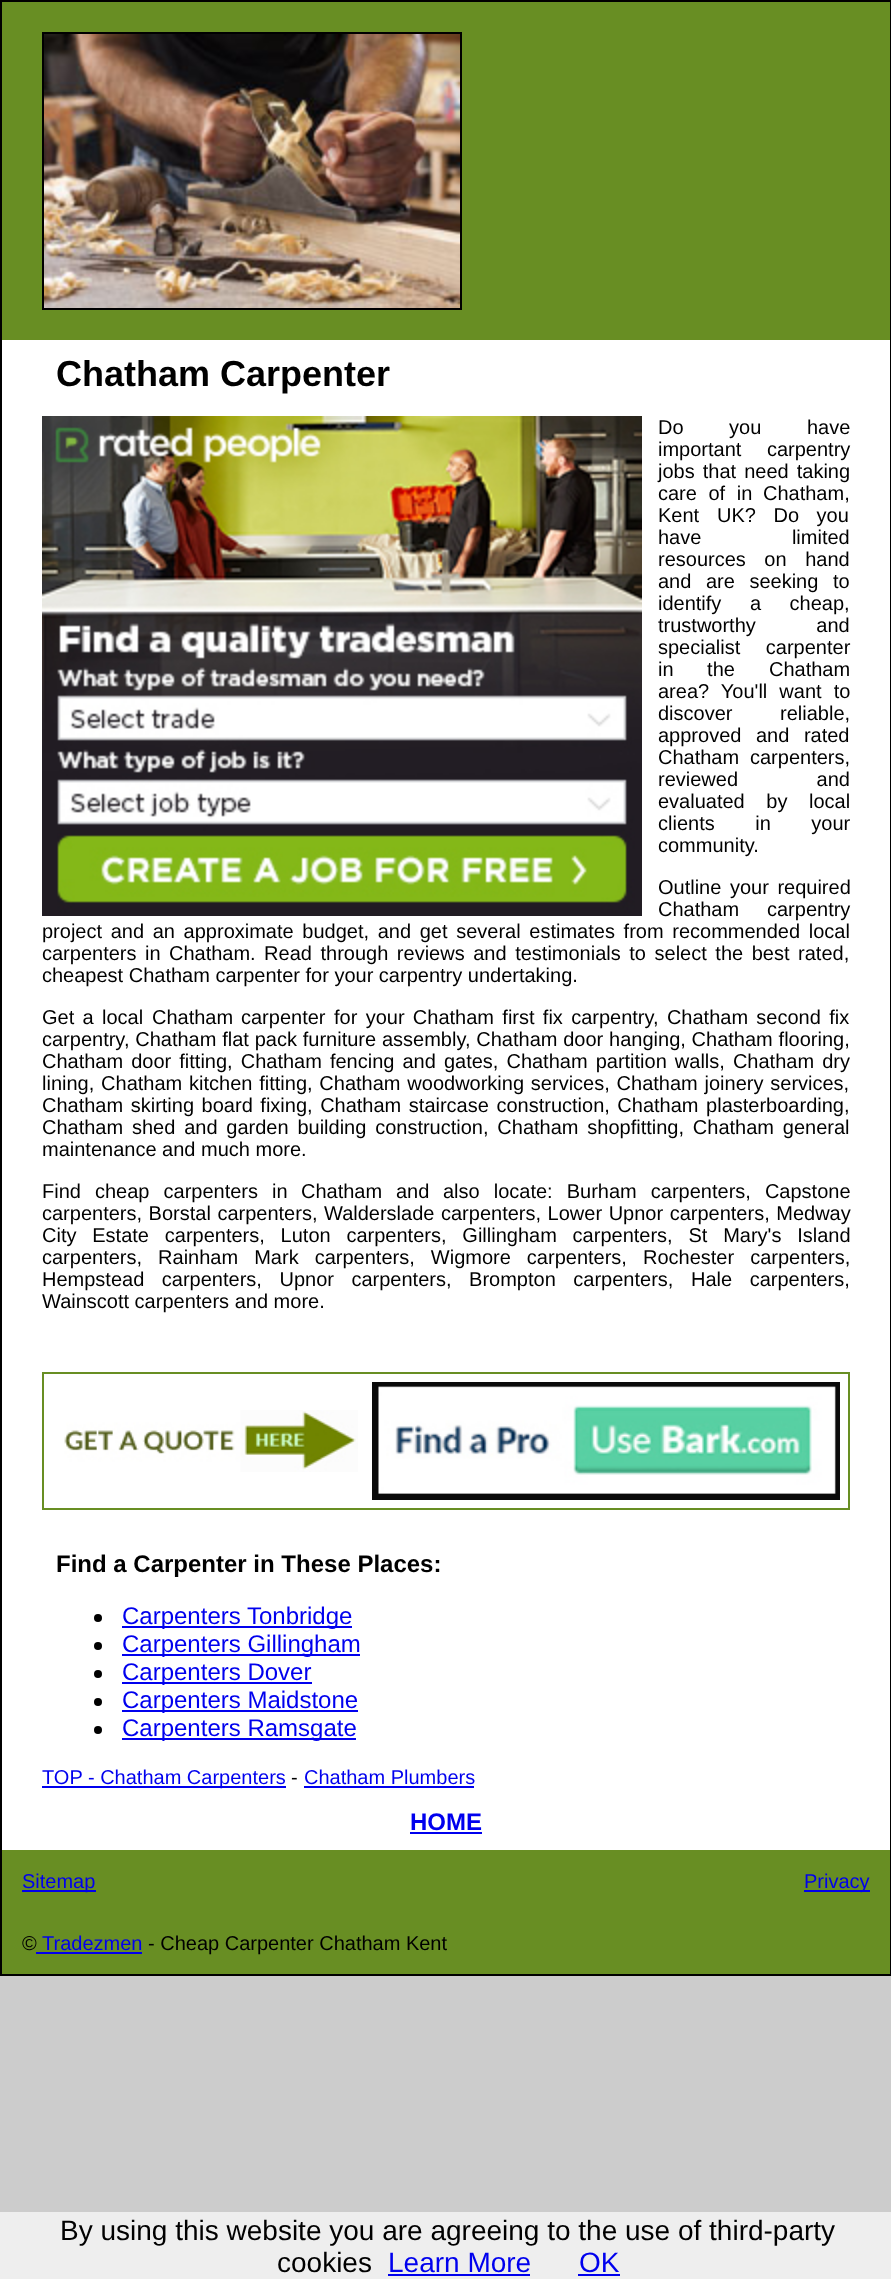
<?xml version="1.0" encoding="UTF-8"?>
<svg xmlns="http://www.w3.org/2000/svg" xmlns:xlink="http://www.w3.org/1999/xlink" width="891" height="2279">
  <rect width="100%" height="100%" fill="#cccccc" />
  <rect x="2" y="340" width="888" height="1510" fill="#ffffff" />
  <rect x="1" y="1" width="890" height="1974" fill="none" stroke="#000000" stroke-width="2" />
  <rect x="2" y="2" width="888" height="338" fill="#688e23" />
  <rect x="43" y="33" width="418" height="276" fill="none" stroke="#000000" stroke-width="2" />
  <image x="44" y="34" width="416" height="274" xlink:href="image1.png" />
  <image x="42" y="416" width="600" height="500" xlink:href="image2.png" />
  <rect x="43" y="1373" width="806" height="136" fill="none" stroke="#688e23" stroke-width="2" />
  <image x="64" y="1410" width="294" height="62" xlink:href="image3.png" />
  <image x="372" y="1382" width="468" height="118" xlink:href="image4.png" />
  <circle cx="98" cy="1618" r="4" fill="#000000" />
  <rect x="122" y="1626" width="230" height="2" fill="#0000ee" />
  <circle cx="98" cy="1646" r="4" fill="#000000" />
  <rect x="122" y="1654" width="238" height="2" fill="#0000ee" />
  <circle cx="98" cy="1674" r="4" fill="#000000" />
  <rect x="122" y="1682" width="190" height="2" fill="#0000ee" />
  <circle cx="98" cy="1702" r="4" fill="#000000" />
  <rect x="122" y="1710" width="236" height="2" fill="#0000ee" />
  <circle cx="98" cy="1730" r="4" fill="#000000" />
  <rect x="122" y="1738" width="234" height="2" fill="#0000ee" />
  <rect x="42" y="1786" width="244" height="2" fill="#0000ee" />
  <rect x="304" y="1786" width="170" height="2" fill="#0000ee" />
  <rect x="410" y="1832" width="72" height="2" fill="#0000ee" />
  <rect x="2" y="1850" width="888" height="124" fill="#688e23" />
  <rect x="22" y="1890" width="74" height="2" fill="#0000ee" />
  <rect x="804" y="1890" width="66" height="2" fill="#0000ee" />
  <rect x="36" y="1952" width="106" height="2" fill="#0000ee" />
  <rect y="2212" width="891" height="67" fill="#eeeeee" />
  <rect x="388" y="2274" width="142" height="2" fill="#0000ee" />
  <rect x="578" y="2274" width="42" height="2" fill="#0000ee" />
  <text x="56" y="386" style="font-family: Liberation Sans; font-size: 36px; font-weight: bold; fill: #000000">Chatham Carpenter</text>
  <text x="658" y="434" word-spacing="40" style="font-family: Liberation Sans; font-size: 20px; fill: #000000">Do you have</text>
  <text x="658" y="456" word-spacing="20" style="font-family: Liberation Sans; font-size: 20px; fill: #000000">important carpentry</text>
  <text x="658" y="478" word-spacing="2.5" style="font-family: Liberation Sans; font-size: 20px; fill: #000000">jobs that need taking</text>
  <text x="658" y="500" word-spacing="6" style="font-family: Liberation Sans; font-size: 20px; fill: #000000">care of in</text>
  <text x="763" y="500" style="font-family: Liberation Sans; font-size: 20px; fill: #000000">Chatham,</text>
  <text x="658" y="522" style="font-family: Liberation Sans; font-size: 20px; fill: #000000">Kent</text>
  <text x="717" y="522" word-spacing="12" style="font-family: Liberation Sans; font-size: 20px; fill: #000000">UK? Do you</text>
  <text x="658" y="544" word-spacing="85" style="font-family: Liberation Sans; font-size: 20px; fill: #000000">have limited</text>
  <text x="658" y="566" word-spacing="13" style="font-family: Liberation Sans; font-size: 20px; fill: #000000">resources on hand</text>
  <text x="658" y="588" word-spacing="9" style="font-family: Liberation Sans; font-size: 20px; fill: #000000">and are seeking to</text>
  <text x="658" y="610" word-spacing="23" style="font-family: Liberation Sans; font-size: 20px; fill: #000000">identify a cheap,</text>
  <text x="658" y="632" word-spacing="55" style="font-family: Liberation Sans; font-size: 20px; fill: #000000">trustworthy and</text>
  <text x="658" y="654" word-spacing="20" style="font-family: Liberation Sans; font-size: 20px; fill: #000000">specialist carpenter</text>
  <text x="658" y="676" word-spacing="28" style="font-family: Liberation Sans; font-size: 20px; fill: #000000">in the</text>
  <text x="769" y="676" style="font-family: Liberation Sans; font-size: 20px; fill: #000000">Chatham</text>
  <text x="658" y="698" word-spacing="6.5" style="font-family: Liberation Sans; font-size: 20px; fill: #000000">area? You'll want to</text>
  <text x="658" y="720" word-spacing="42" style="font-family: Liberation Sans; font-size: 20px; fill: #000000">discover reliable,</text>
  <text x="658" y="742" word-spacing="9" style="font-family: Liberation Sans; font-size: 20px; fill: #000000">approved and rated</text>
  <text x="658" y="764" style="font-family: Liberation Sans; font-size: 20px; fill: #000000">Chatham</text>
  <text x="750" y="764" style="font-family: Liberation Sans; font-size: 20px; fill: #000000">carpenters,</text>
  <text x="658" y="786" word-spacing="73" style="font-family: Liberation Sans; font-size: 20px; fill: #000000">reviewed and</text>
  <text x="658" y="808" word-spacing="16" style="font-family: Liberation Sans; font-size: 20px; fill: #000000">evaluated by local</text>
  <text x="658" y="830" word-spacing="35" style="font-family: Liberation Sans; font-size: 20px; fill: #000000">clients in your</text>
  <text x="658" y="852" style="font-family: Liberation Sans; font-size: 20px; fill: #000000">community.</text>
  <text x="658" y="894" word-spacing="3" style="font-family: Liberation Sans; font-size: 20px; fill: #000000">Outline your required</text>
  <text x="658" y="916" style="font-family: Liberation Sans; font-size: 20px; fill: #000000">Chatham</text>
  <text x="767" y="916" style="font-family: Liberation Sans; font-size: 20px; fill: #000000">carpentry</text>
  <text x="42" y="938" word-spacing="3.1" style="font-family: Liberation Sans; font-size: 20px; fill: #000000">project and an approximate budget, and get several estimates from recommended local</text>
  <text x="42" y="960" word-spacing="3" style="font-family: Liberation Sans; font-size: 20px; fill: #000000">carpenters in</text>
  <text x="169" y="960" style="font-family: Liberation Sans; font-size: 20px; fill: #000000">Chatham</text>
  <text x="250" y="960" word-spacing="3" style="font-family: Liberation Sans; font-size: 20px; fill: #000000">. Read through reviews and testimonials to select the best rated,</text>
  <text x="42" y="982" style="font-family: Liberation Sans; font-size: 20px; fill: #000000">cheapest Chatham carpenter for your carpentry undertaking.</text>
  <text x="42" y="1024" word-spacing="2.75" style="font-family: Liberation Sans; font-size: 20px; fill: #000000">Get a local</text>
  <text x="152" y="1024" style="font-family: Liberation Sans; font-size: 20px; fill: #000000">Chatham</text>
  <text x="241" y="1024" style="font-family: Liberation Sans; font-size: 20px; fill: #000000">carpenter</text>
  <text x="334" y="1024" word-spacing="2.75" style="font-family: Liberation Sans; font-size: 20px; fill: #000000">for your Chatham first fix carpentry, Chatham second fix</text>
  <text x="42" y="1046" word-spacing="0.25" style="font-family: Liberation Sans; font-size: 20px; fill: #000000">carpentry, Chatham flat pack furniture assembly, Chatham door hanging, Chatham flooring,</text>
  <text x="42" y="1068" word-spacing="2.5" style="font-family: Liberation Sans; font-size: 20px; fill: #000000">Chatham door fitting, Chatham fencing and gates, Chatham partition walls, Chatham dry</text>
  <text x="42" y="1090" word-spacing="1.25" style="font-family: Liberation Sans; font-size: 20px; fill: #000000">lining, Chatham kitchen fitting, Chatham woodworking services, Chatham joinery services,</text>
  <text x="42" y="1112" word-spacing="2" style="font-family: Liberation Sans; font-size: 20px; fill: #000000">Chatham skirting board fixing, Chatham staircase construction, Chatham plasterboarding,</text>
  <text x="42" y="1134" word-spacing="3.25" style="font-family: Liberation Sans; font-size: 20px; fill: #000000">Chatham shed and garden building construction, Chatham shopfitting, Chatham general</text>
  <text x="42" y="1156" style="font-family: Liberation Sans; font-size: 20px; fill: #000000">maintenance and much more.</text>
  <text x="42" y="1198" word-spacing="8.5" style="font-family: Liberation Sans; font-size: 20px; fill: #000000">Find cheap carpenters in</text>
  <text x="301" y="1198" style="font-family: Liberation Sans; font-size: 20px; fill: #000000">Chatham</text>
  <text x="396" y="1198" style="font-family: Liberation Sans; font-size: 20px; fill: #000000">and</text>
  <text x="443" y="1198" word-spacing="8.5" style="font-family: Liberation Sans; font-size: 20px; fill: #000000">also locate: Burham carpenters, Capstone</text>
  <text x="42" y="1220" word-spacing="1" style="font-family: Liberation Sans; font-size: 20px; fill: #000000">carpenters, Borstal carpenters, Walderslade carpenters, Lower Upnor carpenters, Medway</text>
  <text x="42" y="1242" word-spacing="10.25" style="font-family: Liberation Sans; font-size: 20px; fill: #000000">City Estate carpenters, Luton carpenters, Gillingham carpenters, St Mary's Island</text>
  <text x="42" y="1264" word-spacing="10.5" style="font-family: Liberation Sans; font-size: 20px; fill: #000000">carpenters, Rainham Mark carpenters, Wigmore carpenters, Rochester carpenters,</text>
  <text x="42" y="1286" word-spacing="12" style="font-family: Liberation Sans; font-size: 20px; fill: #000000">Hempstead carpenters, Upnor carpenters, Brompton carpenters, Hale carpenters,</text>
  <text x="42" y="1308" style="font-family: Liberation Sans; font-size: 20px; fill: #000000">Wainscott carpenters and more.</text>
  <text x="56" y="1572" style="font-family: Liberation Sans; font-size: 24px; font-weight: bold; fill: #000000">Find a Carpenter in These Places:</text>
  <text x="122" y="1624" style="font-family: Liberation Sans; font-size: 24px; fill: #0000ee">Carpenters Tonbridge</text>
  <text x="122" y="1652" style="font-family: Liberation Sans; font-size: 24px; fill: #0000ee">Carpenters Gillingham</text>
  <text x="122" y="1680" style="font-family: Liberation Sans; font-size: 24px; fill: #0000ee">Carpenters Dover</text>
  <text x="122" y="1708" style="font-family: Liberation Sans; font-size: 24px; fill: #0000ee">Carpenters Maidstone</text>
  <text x="122" y="1736" style="font-family: Liberation Sans; font-size: 24px; fill: #0000ee">Carpenters Ramsgate</text>
  <text x="42" y="1784" style="font-family: Liberation Sans; font-size: 20px; fill: #0000ee">TOP - Chatham Carpenters</text>
  <text x="291" y="1784" style="font-family: Liberation Sans; font-size: 20px; fill: #000000">-</text>
  <text x="304" y="1784" style="font-family: Liberation Sans; font-size: 20px; fill: #0000ee">Chatham Plumbers</text>
  <text x="410" y="1830" style="font-family: Liberation Sans; font-size: 24px; font-weight: bold; fill: #0000ee">HOME</text>
  <text x="22" y="1888" style="font-family: Liberation Sans; font-size: 20px; fill: #0000ee">Sitemap</text>
  <text x="804" y="1888" style="font-family: Liberation Sans; font-size: 20px; fill: #0000ee">Privacy</text>
  <text x="22" y="1950" style="font-family: Liberation Sans; font-size: 20px; fill: #000000">©</text>
  <text x="42" y="1950" style="font-family: Liberation Sans; font-size: 20px; fill: #0000ee">Tradezmen</text>
  <text x="148" y="1950" style="font-family: Liberation Sans; font-size: 20px; fill: #000000">- Cheap Carpenter Chatham Kent</text>
  <text x="60" y="2240" style="font-family: Liberation Sans; font-size: 28px; fill: #000000">By using this website you are agreeing to the use of third-party</text>
  <text x="277" y="2272" style="font-family: Liberation Sans; font-size: 28px; fill: #000000">cookies</text>
  <text x="388" y="2272" style="font-family: Liberation Sans; font-size: 28px; fill: #0000ee">Learn More</text>
  <text x="579" y="2272" style="font-family: Liberation Sans; font-size: 28px; fill: #0000ee">OK</text>
</svg>
